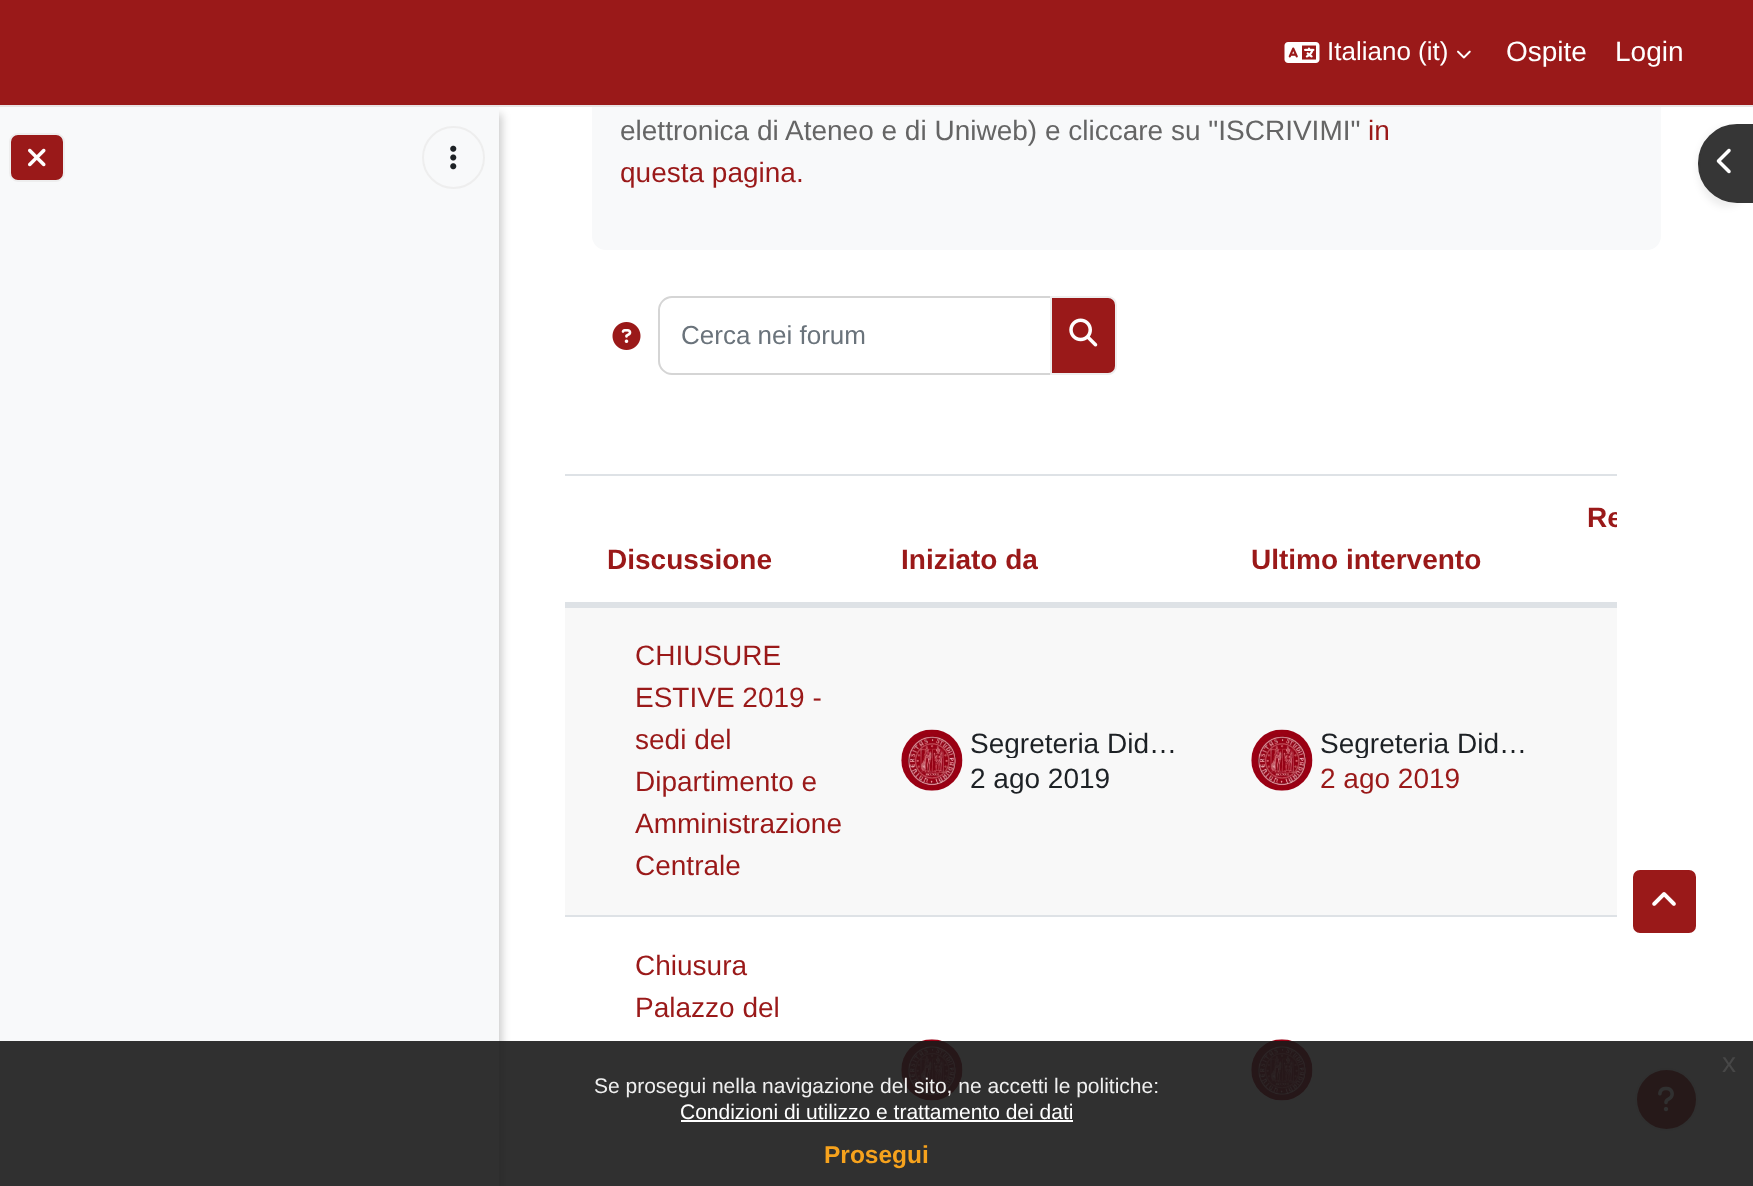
<?xml version="1.0" encoding="UTF-8"?>
<svg xmlns="http://www.w3.org/2000/svg" xmlns:xlink="http://www.w3.org/1999/xlink" width="1753" height="1186">
  <defs>
    <clipPath id="clip1"><rect x="565" y="474" width="1052" height="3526" /></clipPath>
    <clipPath id="clip2"><rect x="970" y="730" width="218" height="28" /></clipPath>
    <clipPath id="clip3"><rect x="1320" y="730" width="218" height="28" /></clipPath>
  </defs>
  <rect width="100%" height="100%" fill="#ffffff" />
  <rect x="4" y="114" width="498" height="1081" fill="#000000" fill-opacity="0.2" filter="blur(4.5px)" />
  <rect x="592" y="-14" width="1069" height="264" rx="14" fill="#f8f9fa" />
  <rect width="1753" height="105" fill="#9a1919" />
  <rect y="105" width="1753" height="2" fill="#e8e3e3" />
  <image x="1284" y="42" width="36" height="21" xlink:href="image1.png" />
  <image x="1457" y="50" width="14" height="9" xlink:href="image2.png" />
  <rect y="107" width="499" height="1079" fill="#f8f9fa" />
  <rect x="10" y="134" width="54" height="47" rx="8" fill="#9a1919" stroke="#eeeeee" stroke-width="2" />
  <image x="28" y="148" width="18" height="19" xlink:href="image3.png" />
  <circle cx="453.5" cy="157.5" r="30.5" fill="none" stroke="#eeeeee" stroke-width="2" />
  <image x="450" y="145" width="7" height="25" xlink:href="image4.png" />
  <image x="612" y="322" width="29" height="28" xlink:href="image5.png" />
  <path d="M 672 297 h 379 v 77 h -379 c -7 0 -13 -6 -13 -13 v -51 c 0 -7 6 -13 13 -13 z" fill="none" stroke="#d5d5d5" stroke-width="2" />
  <path d="M 1051 297 h 57 c 4.5 0 8 3.5 8 8 v 61 c 0 4.5 -3.5 8 -8 8 h -57 z" fill="#9a1919" stroke="#eeeeee" stroke-width="2" />
  <image x="1069" y="318" width="29" height="29" xlink:href="image6.png" />
  <rect x="565" y="474" width="1052" height="2" fill="#dee2e6" />
  <rect x="565" y="602" width="1052" height="4" fill="#dee2e6" />
  <rect x="565" y="608" width="1052" height="307" fill="#f8f8f8" />
  <rect x="565" y="606" width="1052" height="2" fill="#dee2e6" />
  <image x="901" y="729" width="62" height="62" xlink:href="image7.png" />
  <image x="1251" y="729" width="62" height="62" xlink:href="image8.png" />
  <rect x="565" y="915" width="1052" height="2" fill="#dee2e6" />
  <image x="901" y="1039" width="62" height="62" xlink:href="image9.png" />
  <image x="1251" y="1039" width="62" height="62" xlink:href="image10.png" />
  <rect x="1698" y="128" width="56" height="79" rx="39" fill="#000000" fill-opacity="0.07" filter="blur(3.5px)" />
  <path d="M 1737 125 h 16 v 77 h -16 c -21 0 -38 -17 -38 -38 v -1 c 0 -21 17 -38 38 -38 z" fill="#363636" stroke="#363636" stroke-width="2" />
  <image x="1716" y="148" width="15" height="26" xlink:href="image11.png" />
  <rect x="1632" y="869" width="65" height="65" rx="8" fill="#9a1919" stroke="#ffffff" stroke-width="2" />
  <image x="1652" y="892" width="24" height="14" xlink:href="image12.png" />
  <circle cx="1666.5" cy="1099.5" r="30.5" fill="#9a1919" stroke="#eeeeee" stroke-width="2" />
  <image x="1658" y="1086" width="16" height="26" xlink:href="image13.png" />
  <rect y="1041" width="1753" height="145" fill="#191919" fill-opacity="0.9" />
  <rect x="681" y="1120" width="392" height="2" fill="#ffffff" />
  <text x="1327" y="60" style="font-family: Liberation Sans; font-size: 26px; fill: #ffffff">Italiano (it)</text>
  <text x="1506" y="61" style="font-family: Liberation Sans; font-size: 28px; fill: #ffffff">Ospite</text>
  <text x="1615" y="61" style="font-family: Liberation Sans; font-size: 28px; fill: #ffffff">Login</text>
  <text x="620" y="140" style="font-family: Liberation Sans; font-size: 28px; fill: #656565">elettronica di Ateneo e di Uniweb) e cliccare su "ISCRIVIMI"</text>
  <text x="1368" y="140" style="font-family: Liberation Sans; font-size: 28px; fill: #9a1919">in</text>
  <text x="620" y="182" style="font-family: Liberation Sans; font-size: 28px; fill: #9a1919">questa pagina.</text>
  <text x="681" y="344" style="font-family: Liberation Sans; font-size: 26px; fill: #6a737b">Cerca nei forum</text>
  <g clip-path="url(#clip1)">
    <text x="1587" y="527" style="font-family: Liberation Sans; font-size: 28px; font-weight: bold; fill: #9a1919">Re</text>
  </g>
  <text x="607" y="569" style="font-family: Liberation Sans; font-size: 28px; font-weight: bold; fill: #9a1919">Discussione</text>
  <text x="901" y="569" style="font-family: Liberation Sans; font-size: 28px; font-weight: bold; fill: #9a1919">Iniziato da</text>
  <text x="1251" y="569" style="font-family: Liberation Sans; font-size: 28px; font-weight: bold; fill: #9a1919">Ultimo intervento</text>
  <text x="635" y="665" style="font-family: Liberation Sans; font-size: 28px; fill: #9a1919">CHIUSURE</text>
  <text x="635" y="707" style="font-family: Liberation Sans; font-size: 28px; fill: #9a1919">ESTIVE 2019 -</text>
  <text x="635" y="749" style="font-family: Liberation Sans; font-size: 28px; fill: #9a1919">sedi del</text>
  <text x="635" y="791" style="font-family: Liberation Sans; font-size: 28px; fill: #9a1919">Dipartimento e</text>
  <text x="635" y="833" style="font-family: Liberation Sans; font-size: 28px; fill: #9a1919">Amministrazione</text>
  <text x="635" y="875" style="font-family: Liberation Sans; font-size: 28px; fill: #9a1919">Centrale</text>
  <g clip-path="url(#clip2)">
    <text x="970" y="753" style="font-family: Liberation Sans; font-size: 28px; fill: #1d2125">Segreteria Did…</text>
  </g>
  <text x="970" y="788" style="font-family: Liberation Sans; font-size: 28px; fill: #1d2125">2 ago 2019</text>
  <g clip-path="url(#clip3)">
    <text x="1320" y="753" style="font-family: Liberation Sans; font-size: 28px; fill: #1d2125">Segreteria Did…</text>
  </g>
  <text x="1320" y="788" style="font-family: Liberation Sans; font-size: 28px; fill: #9a1919">2 ago 2019</text>
  <text x="635" y="975" style="font-family: Liberation Sans; font-size: 28px; fill: #9a1919">Chiusura</text>
  <text x="635" y="1017" style="font-family: Liberation Sans; font-size: 28px; fill: #9a1919">Palazzo del</text>
  <text x="1722" y="1072" style="font-family: Liberation Sans; font-size: 28px; fill: #474747">x</text>
  <text x="594" y="1093" style="font-family: Liberation Sans; font-size: 21px; fill: #efefef">Se prosegui nella navigazione del sito, ne accetti le politiche:</text>
  <text x="680" y="1119" style="font-family: Liberation Sans; font-size: 21px; fill: #ffffff">Condizioni di utilizzo e trattamento dei dati</text>
  <text x="824" y="1163" style="font-family: Liberation Sans; font-size: 24.5px; font-weight: bold; fill: #f6a21d">Prosegui</text>
</svg>
